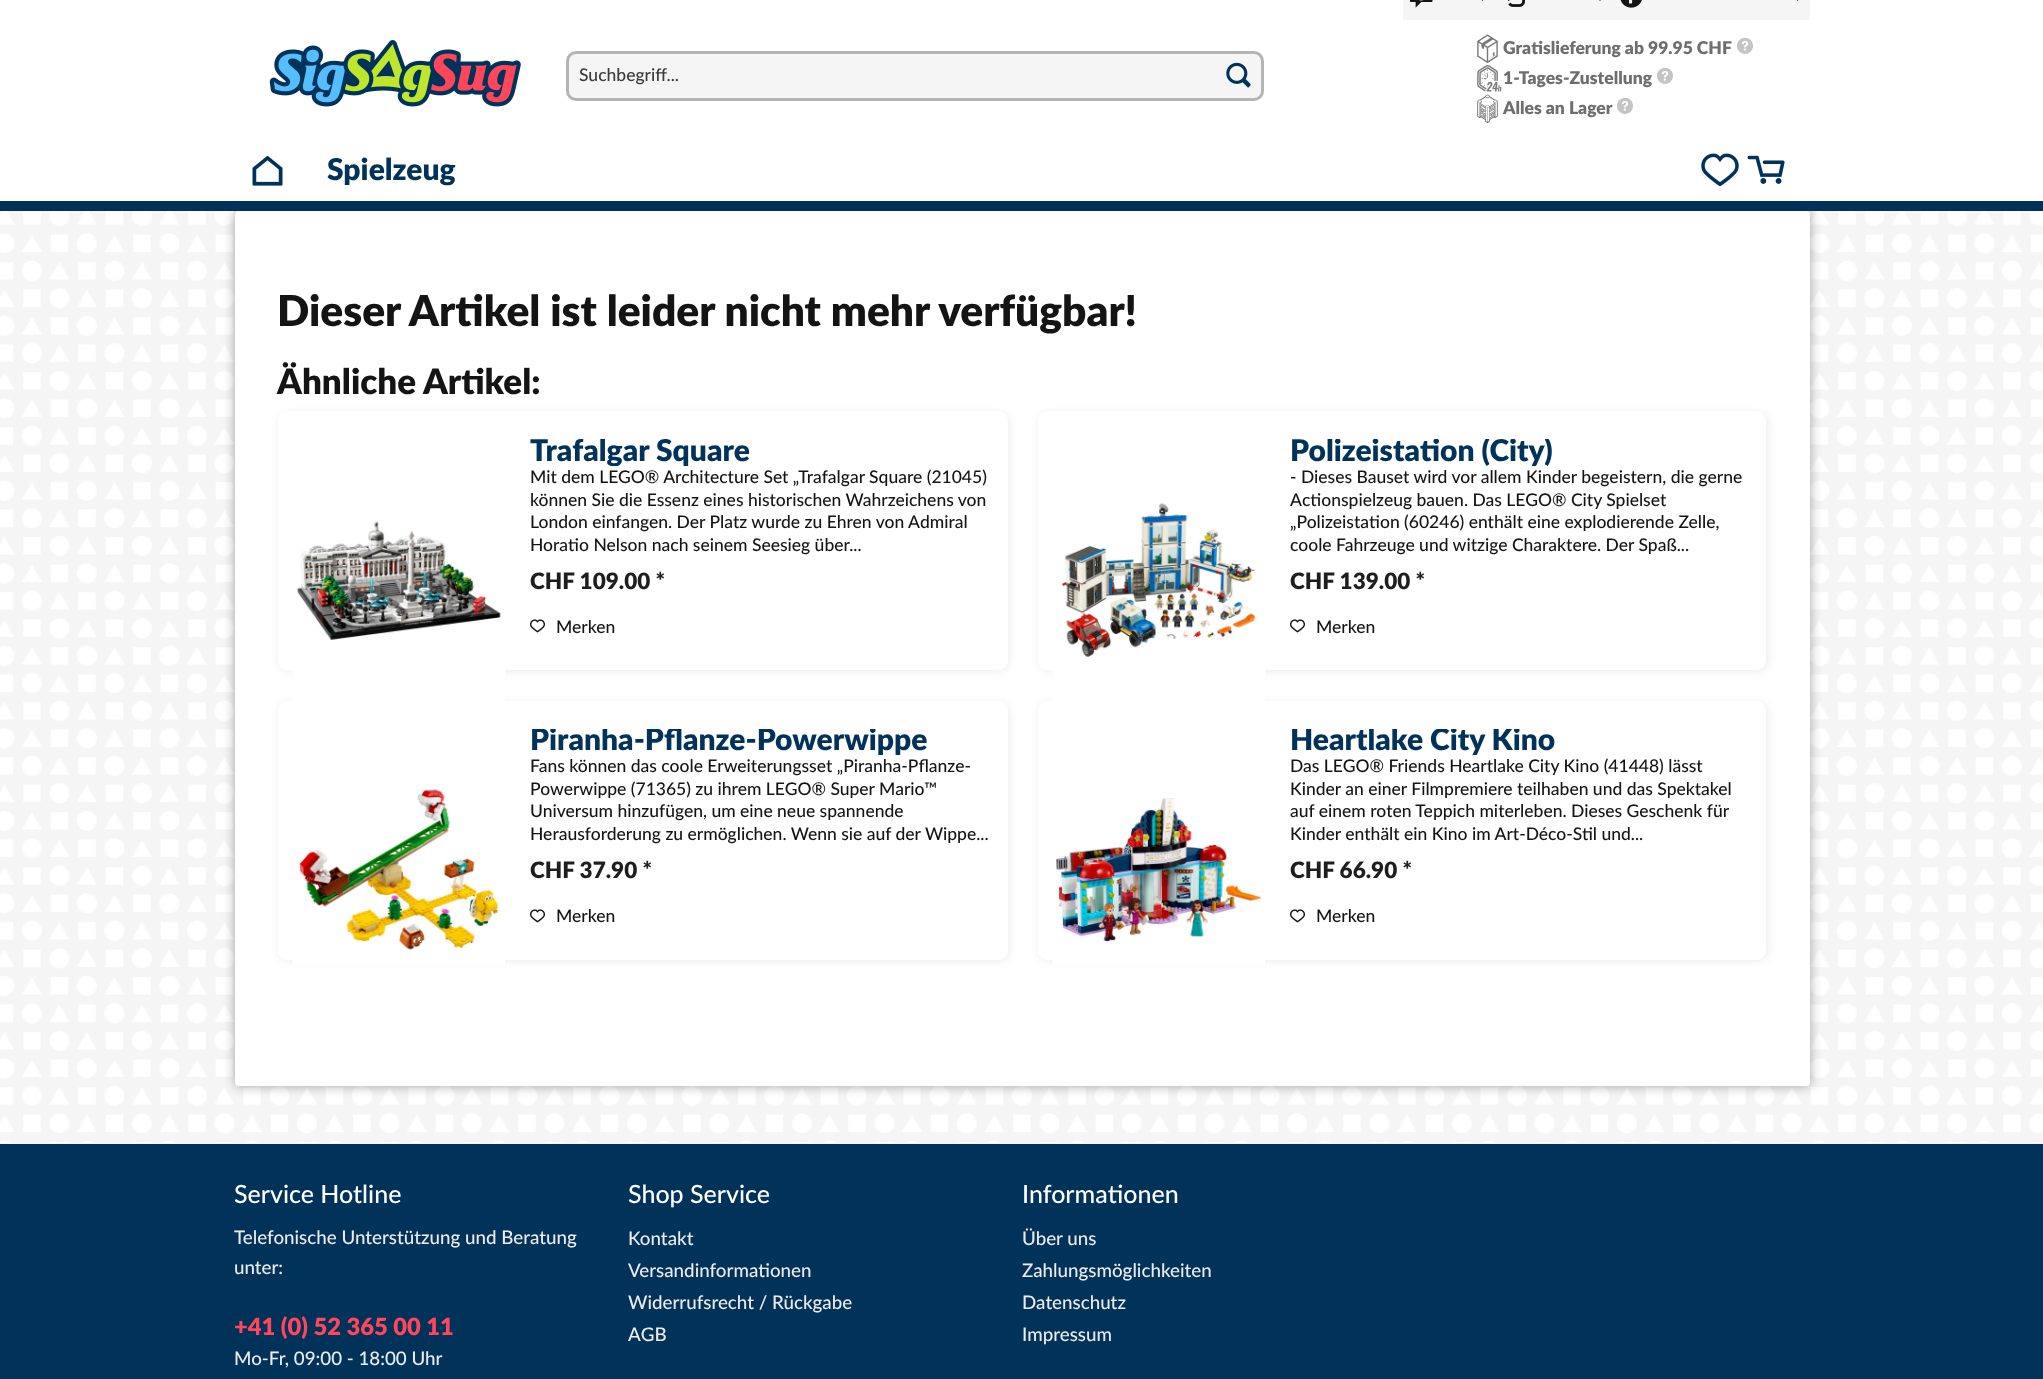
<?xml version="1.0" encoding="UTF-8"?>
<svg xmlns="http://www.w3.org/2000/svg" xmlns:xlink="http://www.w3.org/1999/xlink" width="2043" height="1379">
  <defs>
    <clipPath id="clip1"><path d="M 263 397 h 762 v 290 h -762 z m 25 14 h 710 c 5.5 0 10 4.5 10 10 v 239 c 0 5.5 -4.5 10 -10 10 h -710 c -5.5 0 -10 -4.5 -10 -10 v -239 c 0 -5.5 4.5 -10 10 -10 z" clip-rule="evenodd" /></clipPath>
    <clipPath id="clip2"><path d="M 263 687 h 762 v 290 h -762 z m 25 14 h 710 c 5.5 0 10 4.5 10 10 v 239 c 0 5.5 -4.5 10 -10 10 h -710 c -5.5 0 -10 -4.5 -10 -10 v -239 c 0 -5.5 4.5 -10 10 -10 z" clip-rule="evenodd" /></clipPath>
    <clipPath id="clip3"><path d="M 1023 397 h 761 v 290 h -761 z m 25 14 h 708 c 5.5 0 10 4.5 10 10 v 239 c 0 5.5 -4.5 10 -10 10 h -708 c -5.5 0 -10 -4.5 -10 -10 v -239 c 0 -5.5 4.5 -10 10 -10 z" clip-rule="evenodd" /></clipPath>
    <clipPath id="clip4"><path d="M 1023 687 h 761 v 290 h -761 z m 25 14 h 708 c 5.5 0 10 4.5 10 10 v 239 c 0 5.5 -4.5 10 -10 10 h -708 c -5.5 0 -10 -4.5 -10 -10 v -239 c 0 -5.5 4.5 -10 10 -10 z" clip-rule="evenodd" /></clipPath>
    <clipPath id="clip5"><rect x="530" y="439" width="463" height="27" /></clipPath>
    <clipPath id="clip6"><rect x="1290" y="439" width="461" height="27" /></clipPath>
    <clipPath id="clip7"><rect x="530" y="729" width="463" height="27" /></clipPath>
    <clipPath id="clip8"><rect x="1290" y="729" width="461" height="27" /></clipPath>
  </defs>
  <rect width="100%" height="100%" fill="#ffffff" />
  <image x="0" y="211" width="2043" height="932" xlink:href="image1.png" />
  <rect x="1403" width="407" height="20" fill="#f5f5f5" />
  <image x="1410" y="0" width="23" height="8" xlink:href="image2.png" />
  <image x="1481" y="0" width="3" height="1" xlink:href="image3.png" />
  <image x="1508" y="0" width="17" height="7" xlink:href="image4.png" />
  <rect x="1599" width="2" height="1" fill="#9f9f9f" />
  <image x="1620" y="0" width="22" height="8" xlink:href="image5.png" />
  <image x="1796" y="0" width="3" height="1" xlink:href="image3.png" />
  <image x="269" y="40" width="252" height="67" xlink:href="image6.png" />
  <rect x="567.5" y="52.5" width="695" height="47" rx="8.5" fill="#f5f5f5" stroke="#b4b4b4" stroke-width="3" />
  <image x="1226" y="62" width="25" height="26" xlink:href="image7.png" />
  <image x="1477" y="34" width="21" height="29" xlink:href="image8.png" />
  <image x="1737" y="37" width="16" height="17" xlink:href="image9.png" />
  <image x="1477" y="65" width="25" height="27" xlink:href="image10.png" />
  <image x="1657" y="67" width="16" height="17" xlink:href="image9.png" />
  <image x="1477" y="94" width="21" height="29" xlink:href="image11.png" />
  <image x="1617" y="97" width="16" height="17" xlink:href="image9.png" />
  <rect x="235" y="211" width="1575" height="875" rx="4" fill="#000000" fill-opacity="0.35" filter="blur(6px)" />
  <rect x="239" y="200" width="1567" height="1" fill="#ffffff" />
  <rect y="201" width="2043" height="10" fill="#00325a" />
  <image x="252" y="155" width="31" height="31" xlink:href="image12.png" />
  <image x="1701" y="153" width="38" height="34" xlink:href="image13.png" />
  <image x="1747" y="155" width="38" height="29" xlink:href="image14.png" />
  <rect x="235" y="211" width="1575" height="875" rx="4" fill="#ffffff" />
  <g clip-path="url(#clip1)">
    <rect x="279" y="413" width="730" height="258" rx="10" fill="#000000" fill-opacity="0.08" filter="blur(5px)" />
  </g>
  <rect x="279.5" y="412.5" width="727" height="256" rx="8.5" fill="none" stroke="#ffffff" stroke-width="3" />
  <g clip-path="url(#clip2)">
    <rect x="279" y="703" width="730" height="258" rx="10" fill="#000000" fill-opacity="0.08" filter="blur(5px)" />
  </g>
  <image x="292" y="521" width="213" height="180" xlink:href="image15.png" />
  <image x="530" y="619" width="15" height="14" xlink:href="image16.png" />
  <g clip-path="url(#clip3)">
    <rect x="1039" y="413" width="729" height="258" rx="10" fill="#000000" fill-opacity="0.08" filter="blur(5px)" />
  </g>
  <g clip-path="url(#clip4)">
    <rect x="1039" y="703" width="729" height="258" rx="10" fill="#000000" fill-opacity="0.08" filter="blur(5px)" />
  </g>
  <image x="1052" y="503" width="213" height="198" xlink:href="image17.png" />
  <image x="1290" y="619" width="15" height="14" xlink:href="image16.png" />
  <rect x="279.5" y="702.5" width="727" height="256" rx="8.5" fill="none" stroke="#ffffff" stroke-width="3" />
  <image x="292" y="789" width="213" height="176" xlink:href="image18.png" />
  <image x="530" y="909" width="15" height="14" xlink:href="image16.png" />
  <image x="1052" y="798" width="213" height="167" xlink:href="image19.png" />
  <image x="1290" y="909" width="15" height="14" xlink:href="image16.png" />
  <rect y="1144" width="2043" height="235" fill="#00325a" />
  <rect y="1143" width="2043" height="1" fill="#f5f5f5" />
  <text x="579" y="81" style="font-family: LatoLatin; font-size: 17.5px; font-weight: 500; fill: #3a3a3a">Suchbegriff...</text>
  <text x="1503" y="54" style="font-family: LatoLatin; font-size: 17.5px; font-weight: 900; fill: #6e6e6e">Gratislieferung ab 99.95 CHF</text>
  <text x="1503" y="84" style="font-family: LatoLatin; font-size: 17.5px; font-weight: 900; fill: #6e6e6e">1-Tages-Zustellung</text>
  <text x="1503" y="114" style="font-family: LatoLatin; font-size: 17.5px; font-weight: 900; fill: #6e6e6e">Alles an Lager</text>
  <text x="327" y="180" style="font-family: LatoLatin; font-size: 30px; font-weight: 900; fill: #00325a">Spielzeug</text>
  <text x="277" y="326" style="font-family: LatoLatin; font-size: 42.5px; font-weight: 900; fill: #141414">Dieser Artikel ist leider nicht mehr verfügbar!</text>
  <text x="277" y="394" style="font-family: LatoLatin; font-size: 35px; font-weight: 900; fill: #141414">Ähnliche Artikel:</text>
  <g clip-path="url(#clip5)">
    <text x="530" y="461" style="font-family: LatoLatin; font-size: 30px; font-weight: 900; fill: #00325a">Trafalgar Square</text>
  </g>
  <text x="530" y="483" style="font-family: LatoLatin; font-size: 17.5px; font-weight: 500; fill: #141414">Mit dem LEGO® Architecture Set „Trafalgar Square (21045)</text>
  <text x="530" y="506" style="font-family: LatoLatin; font-size: 17.5px; font-weight: 500; fill: #141414">können Sie die Essenz eines historischen Wahrzeichens von</text>
  <text x="530" y="528" style="font-family: LatoLatin; font-size: 17.5px; font-weight: 500; fill: #141414">London einfangen. Der Platz wurde zu Ehren von Admiral</text>
  <text x="530" y="551" style="font-family: LatoLatin; font-size: 17.5px; font-weight: 500; fill: #141414">Horatio Nelson nach seinem Seesieg über...</text>
  <text x="530" y="589" style="font-family: LatoLatin; font-size: 22.5px; font-weight: 900; fill: #1e1e1e">CHF 109.00 *</text>
  <text x="556" y="633" style="font-family: LatoLatin; font-size: 17.5px; font-weight: 500; fill: #141414">Merken</text>
  <g clip-path="url(#clip6)">
    <text x="1290" y="461" style="font-family: LatoLatin; font-size: 30px; font-weight: 900; fill: #00325a">Polizeistation (City)</text>
  </g>
  <text x="1290" y="483" style="font-family: LatoLatin; font-size: 17.5px; font-weight: 500; fill: #141414">- Dieses Bauset wird vor allem Kinder begeistern, die gerne</text>
  <text x="1290" y="506" style="font-family: LatoLatin; font-size: 17.5px; font-weight: 500; fill: #141414">Actionspielzeug bauen. Das LEGO® City Spielset</text>
  <text x="1290" y="528" style="font-family: LatoLatin; font-size: 17.5px; font-weight: 500; fill: #141414">„Polizeistation (60246) enthält eine explodierende Zelle,</text>
  <text x="1290" y="551" style="font-family: LatoLatin; font-size: 17.5px; font-weight: 500; fill: #141414">coole Fahrzeuge und witzige Charaktere. Der Spaß...</text>
  <text x="1290" y="589" style="font-family: LatoLatin; font-size: 22.5px; font-weight: 900; fill: #1e1e1e">CHF 139.00 *</text>
  <text x="1316" y="633" style="font-family: LatoLatin; font-size: 17.5px; font-weight: 500; fill: #141414">Merken</text>
  <g clip-path="url(#clip7)">
    <text x="530" y="750" style="font-family: LatoLatin; font-size: 30px; font-weight: 900; fill: #00325a">Piranha-Pflanze-Powerwippe</text>
  </g>
  <text x="530" y="772" style="font-family: LatoLatin; font-size: 17.5px; font-weight: 500; fill: #141414">Fans können das coole Erweiterungsset „Piranha-Pflanze-</text>
  <text x="530" y="795" style="font-family: LatoLatin; font-size: 17.5px; font-weight: 500; fill: #141414">Powerwippe (71365) zu ihrem LEGO® Super Mario™</text>
  <text x="530" y="817" style="font-family: LatoLatin; font-size: 17.5px; font-weight: 500; fill: #141414">Universum hinzufügen, um eine neue spannende</text>
  <text x="530" y="840" style="font-family: LatoLatin; font-size: 17.5px; font-weight: 500; fill: #141414">Herausforderung zu ermöglichen. Wenn sie auf der Wippe...</text>
  <text x="530" y="878" style="font-family: LatoLatin; font-size: 22.5px; font-weight: 900; fill: #1e1e1e">CHF 37.90 *</text>
  <text x="556" y="922" style="font-family: LatoLatin; font-size: 17.5px; font-weight: 500; fill: #141414">Merken</text>
  <g clip-path="url(#clip8)">
    <text x="1290" y="750" style="font-family: LatoLatin; font-size: 30px; font-weight: 900; fill: #00325a">Heartlake City Kino</text>
  </g>
  <text x="1290" y="772" style="font-family: LatoLatin; font-size: 17.5px; font-weight: 500; fill: #141414">Das LEGO® Friends Heartlake City Kino (41448) lässt</text>
  <text x="1290" y="795" style="font-family: LatoLatin; font-size: 17.5px; font-weight: 500; fill: #141414">Kinder an einer Filmpremiere teilhaben und das Spektakel</text>
  <text x="1290" y="817" style="font-family: LatoLatin; font-size: 17.5px; font-weight: 500; fill: #141414">auf einem roten Teppich miterleben. Dieses Geschenk für</text>
  <text x="1290" y="840" style="font-family: LatoLatin; font-size: 17.5px; font-weight: 500; fill: #141414">Kinder enthält ein Kino im Art-Déco-Stil und...</text>
  <text x="1290" y="878" style="font-family: LatoLatin; font-size: 22.5px; font-weight: 900; fill: #1e1e1e">CHF 66.90 *</text>
  <text x="1316" y="922" style="font-family: LatoLatin; font-size: 17.5px; font-weight: 500; fill: #141414">Merken</text>
  <text x="234" y="1203" style="font-family: LatoLatin; font-size: 25px; font-weight: 500; fill: #ffffff">Service Hotline</text>
  <text x="234" y="1244" style="font-family: LatoLatin; font-size: 18.75px; font-weight: 500; fill: #ebebeb">Telefonische Unterstützung und Beratung</text>
  <text x="234" y="1274" style="font-family: LatoLatin; font-size: 18.75px; font-weight: 500; fill: #ebebeb">unter:</text>
  <text x="234" y="1335" style="font-family: LatoLatin; font-size: 23.75px; font-weight: 900; fill: #ff465a">+41 (0) 52 365 00 11</text>
  <text x="234" y="1365" style="font-family: LatoLatin; font-size: 18.75px; font-weight: 500; fill: #ebebeb">Mo-Fr, 09:00 - 18:00 Uhr</text>
  <text x="628" y="1203" style="font-family: LatoLatin; font-size: 25px; font-weight: 500; fill: #ffffff">Shop Service</text>
  <text x="628" y="1245" style="font-family: LatoLatin; font-size: 18.75px; font-weight: 500; fill: #ebebeb">Kontakt</text>
  <text x="628" y="1277" style="font-family: LatoLatin; font-size: 18.75px; font-weight: 500; fill: #ebebeb">Versandinformationen</text>
  <text x="628" y="1309" style="font-family: LatoLatin; font-size: 18.75px; font-weight: 500; fill: #ebebeb">Widerrufsrecht / Rückgabe</text>
  <text x="628" y="1341" style="font-family: LatoLatin; font-size: 18.75px; font-weight: 500; fill: #ebebeb">AGB</text>
  <text x="1022" y="1203" style="font-family: LatoLatin; font-size: 25px; font-weight: 500; fill: #ffffff">Informationen</text>
  <text x="1022" y="1245" style="font-family: LatoLatin; font-size: 18.75px; font-weight: 500; fill: #ebebeb">Über uns</text>
  <text x="1022" y="1277" style="font-family: LatoLatin; font-size: 18.75px; font-weight: 500; fill: #ebebeb">Zahlungsmöglichkeiten</text>
  <text x="1022" y="1309" style="font-family: LatoLatin; font-size: 18.75px; font-weight: 500; fill: #ebebeb">Datenschutz</text>
  <text x="1022" y="1341" style="font-family: LatoLatin; font-size: 18.75px; font-weight: 500; fill: #ebebeb">Impressum</text>
</svg>
